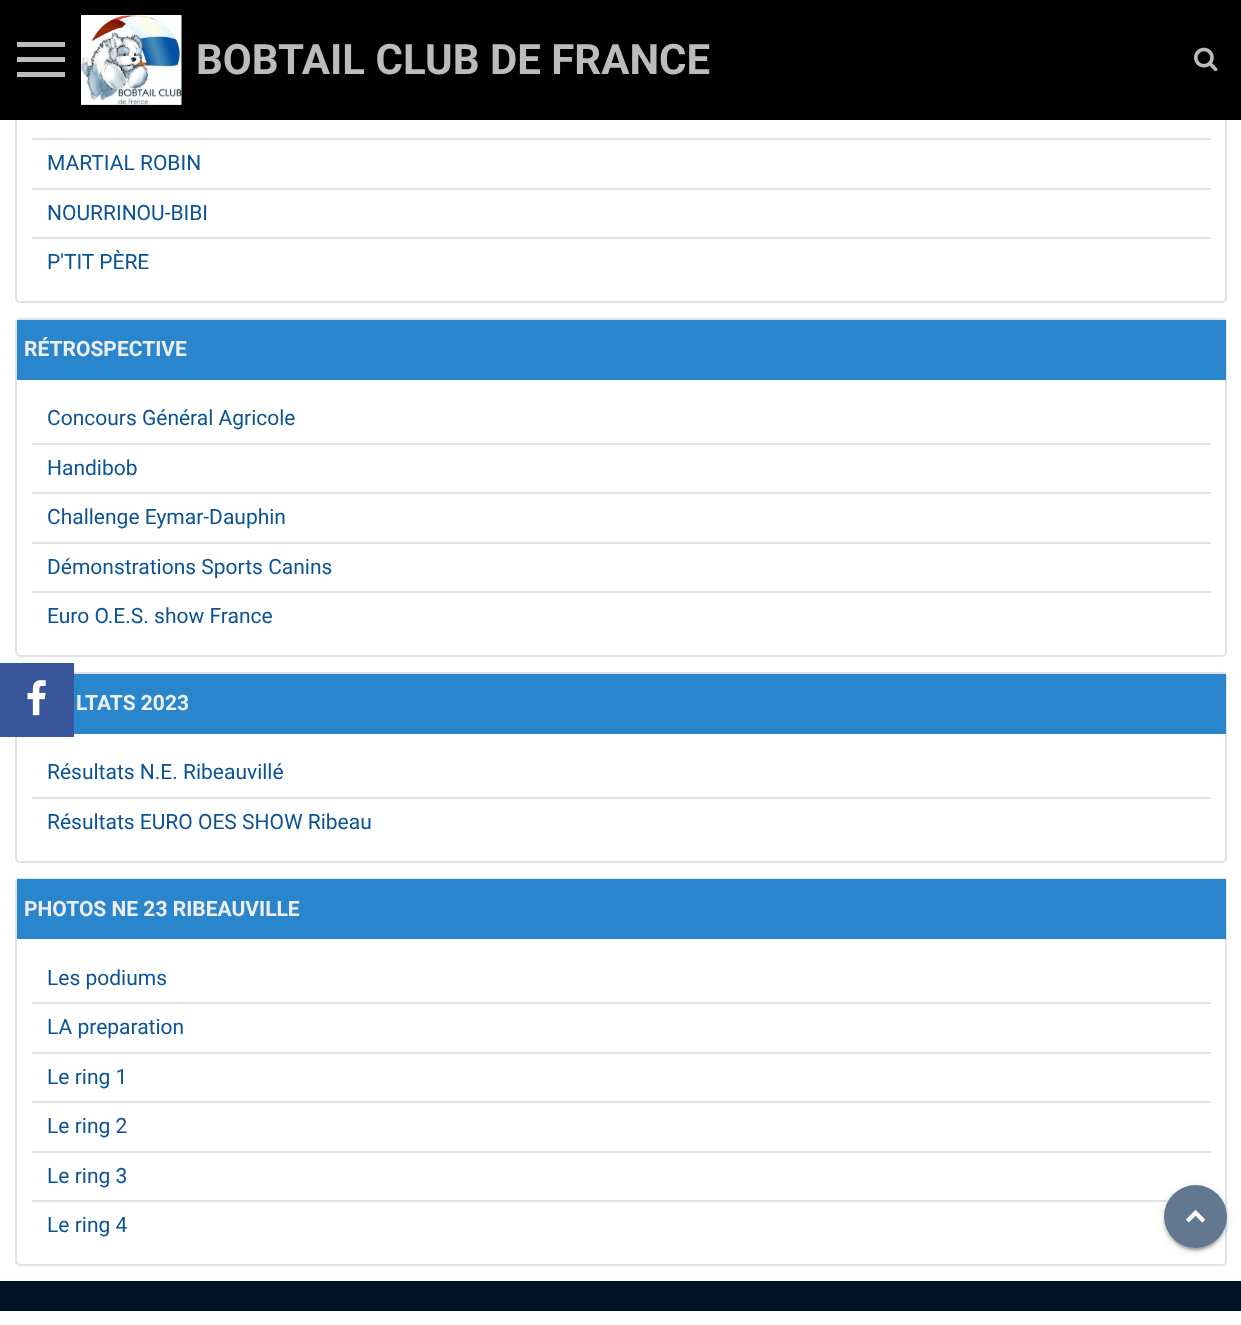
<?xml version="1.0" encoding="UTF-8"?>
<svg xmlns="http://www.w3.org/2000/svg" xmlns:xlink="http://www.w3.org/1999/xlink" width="1241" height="1325">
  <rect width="100%" height="100%" fill="#ffffff" />
  <rect x="16" y="-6" width="1210" height="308" rx="4" fill="none" stroke="#dfe4eb" stroke-width="2" />
  <rect width="1241" height="120" fill="#000000" />
  <rect x="17" y="57" width="48" height="5" fill="#bcbcbc" />
  <rect x="17" y="42" width="48" height="5" fill="#bcbcbc" />
  <rect x="17" y="72" width="48" height="5" fill="#bcbcbc" />
  <image x="81" y="15" width="101" height="90" xlink:href="image1.png" />
  <image x="1194" y="47" width="24" height="25" xlink:href="image2.png" />
  <rect x="32" y="138" width="1179" height="2" fill="#dfe4eb" />
  <rect x="32" y="188" width="1179" height="2" fill="#dfe4eb" />
  <rect x="32" y="237" width="1179" height="2" fill="#dfe4eb" />
  <rect x="16" y="319" width="1210" height="337" rx="4" fill="none" stroke="#dfe4eb" stroke-width="2" />
  <rect x="17" y="320" width="1209" height="60" fill="#2986cc" />
  <rect x="32" y="443" width="1179" height="2" fill="#dfe4eb" />
  <rect x="32" y="492" width="1179" height="2" fill="#dfe4eb" />
  <rect x="32" y="542" width="1179" height="2" fill="#dfe4eb" />
  <rect x="32" y="591" width="1179" height="2" fill="#dfe4eb" />
  <rect x="16" y="673" width="1210" height="189" rx="4" fill="none" stroke="#dfe4eb" stroke-width="2" />
  <rect x="74" y="674" width="1152" height="60" fill="#2986cc" />
  <rect x="32" y="797" width="1179" height="2" fill="#dfe4eb" />
  <rect x="16" y="879" width="1210" height="386" rx="4" fill="none" stroke="#dfe4eb" stroke-width="2" />
  <rect x="17" y="879" width="1209" height="60" fill="#2986cc" />
  <rect x="32" y="1002" width="1179" height="2" fill="#dfe4eb" />
  <rect x="32" y="1052" width="1179" height="2" fill="#dfe4eb" />
  <rect x="32" y="1101" width="1179" height="2" fill="#dfe4eb" />
  <rect x="32" y="1151" width="1179" height="2" fill="#dfe4eb" />
  <rect x="32" y="1200" width="1137" height="2" fill="#dfe4eb" />
  <rect y="663" width="74" height="74" fill="#385699" />
  <image x="27" y="680" width="19" height="36" xlink:href="image3.png" />
  <rect x="1164" y="1187" width="63" height="63" rx="31.5" fill="#000000" fill-opacity="0.12" filter="blur(4px)" />
  <rect x="1167" y="1193" width="57" height="57" rx="28.5" fill="#000000" fill-opacity="0.2" filter="blur(1px)" />
  <rect x="1164" y="1188" width="63" height="63" rx="31.5" fill="#000000" fill-opacity="0.14" filter="blur(1.5px)" />
  <circle cx="1195.5" cy="1216.5" r="31.5" fill="#627890" />
  <image x="1186" y="1210" width="19" height="13" xlink:href="image4.png" />
  <rect y="1281" width="1241" height="30" fill="#011327" />
  <text x="196" y="74" style="font-family: Roboto; font-size: 42px; font-weight: bold; fill: #bcbcbc">BOBTAIL CLUB DE FRANCE</text>
  <text x="47" y="170" style="font-family: Roboto; font-size: 21px; fill: #0b5394">MARTIAL ROBIN</text>
  <text x="47" y="220" style="font-family: Roboto; font-size: 21px; fill: #0b5394">NOURRINOU-BIBI</text>
  <text x="47" y="269" style="font-family: Roboto; font-size: 21px; fill: #0b5394">P'TIT PÈRE</text>
  <text x="24" y="356" style="font-family: Roboto; font-size: 21px; font-weight: bold; fill: #eeeeee">RÉTROSPECTIVE</text>
  <text x="47" y="425" style="font-family: Roboto; font-size: 21px; fill: #0b5394">Concours Général Agricole</text>
  <text x="47" y="475" style="font-family: Roboto; font-size: 21px; fill: #0b5394">Handibob</text>
  <text x="47" y="524" style="font-family: Roboto; font-size: 21px; fill: #0b5394">Challenge Eymar-Dauphin</text>
  <text x="47" y="574" style="font-family: Roboto; font-size: 21px; fill: #0b5394">Démonstrations Sports Canins</text>
  <text x="47" y="623" style="font-family: Roboto; font-size: 21px; fill: #0b5394">Euro O.E.S. show France</text>
  <text x="76" y="710" style="font-family: Roboto; font-size: 21px; font-weight: bold; fill: #eeeeee">LTATS 2023</text>
  <text x="47" y="779" style="font-family: Roboto; font-size: 21px; fill: #0b5394">Résultats N.E. Ribeauvillé</text>
  <text x="47" y="829" style="font-family: Roboto; font-size: 21px; fill: #0b5394">Résultats EURO OES SHOW Ribeau</text>
  <text x="24" y="916" style="font-family: Roboto; font-size: 21px; font-weight: bold; fill: #eeeeee">PHOTOS NE 23 RIBEAUVILLE</text>
  <text x="47" y="985" style="font-family: Roboto; font-size: 21px; fill: #0b5394">Les podiums</text>
  <text x="47" y="1034" style="font-family: Roboto; font-size: 21px; fill: #0b5394">LA preparation</text>
  <text x="47" y="1084" style="font-family: Roboto; font-size: 21px; fill: #0b5394">Le ring 1</text>
  <text x="47" y="1133" style="font-family: Roboto; font-size: 21px; fill: #0b5394">Le ring 2</text>
  <text x="47" y="1183" style="font-family: Roboto; font-size: 21px; fill: #0b5394">Le ring 3</text>
  <text x="47" y="1232" style="font-family: Roboto; font-size: 21px; fill: #0b5394">Le ring 4</text>
</svg>
